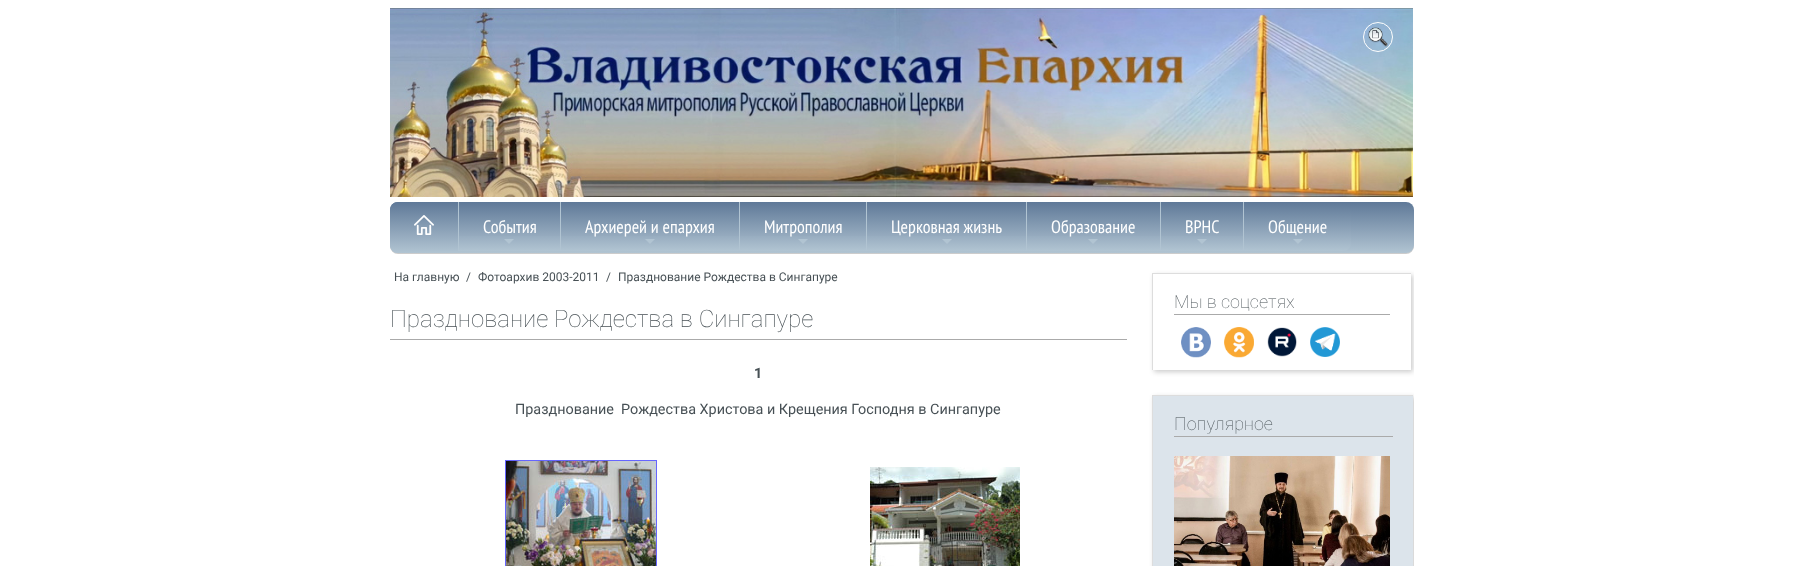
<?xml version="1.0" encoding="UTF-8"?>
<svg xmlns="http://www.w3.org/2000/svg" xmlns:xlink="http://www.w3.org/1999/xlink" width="1803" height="566">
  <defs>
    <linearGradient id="g1" gradientUnits="userSpaceOnUse" x1="902" y1="202" x2="902" y2="253"><stop offset="0" stop-color="#5f7998" /><stop offset="1" stop-color="#b1c4d2" /></linearGradient>
    <linearGradient id="g2" gradientUnits="userSpaceOnUse" x1="424" y1="202" x2="424" y2="253"><stop offset="0" stop-color="#5f7998" /><stop offset="1" stop-color="#b1c4d2" /></linearGradient>
    <linearGradient id="g3" gradientUnits="userSpaceOnUse" x1="510" y1="202" x2="510" y2="251"><stop offset="0" stop-color="#5f7998" /><stop offset="1" stop-color="#b1c4d2" /></linearGradient>
    <linearGradient id="g4" gradientUnits="userSpaceOnUse" x1="650" y1="202" x2="650" y2="251"><stop offset="0" stop-color="#5f7998" /><stop offset="1" stop-color="#b1c4d2" /></linearGradient>
    <linearGradient id="g5" gradientUnits="userSpaceOnUse" x1="803" y1="202" x2="803" y2="251"><stop offset="0" stop-color="#5f7998" /><stop offset="1" stop-color="#b1c4d2" /></linearGradient>
    <linearGradient id="g6" gradientUnits="userSpaceOnUse" x1="947" y1="202" x2="947" y2="251"><stop offset="0" stop-color="#5f7998" /><stop offset="1" stop-color="#b1c4d2" /></linearGradient>
    <linearGradient id="g7" gradientUnits="userSpaceOnUse" x1="1094" y1="202" x2="1094" y2="251"><stop offset="0" stop-color="#5f7998" /><stop offset="1" stop-color="#b1c4d2" /></linearGradient>
    <linearGradient id="g8" gradientUnits="userSpaceOnUse" x1="1202" y1="202" x2="1202" y2="251"><stop offset="0" stop-color="#5f7998" /><stop offset="1" stop-color="#b1c4d2" /></linearGradient>
    <linearGradient id="g9" gradientUnits="userSpaceOnUse" x1="1298" y1="202" x2="1298" y2="251"><stop offset="0" stop-color="#5f7998" /><stop offset="1" stop-color="#b1c4d2" /></linearGradient>
    <clipPath id="clip1"><rect x="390" y="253" width="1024" height="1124" /></clipPath>
    <clipPath id="clip2"><path d="M 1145 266 h 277 v 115 h -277 z m 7 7 h 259 v 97 h -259 z" clip-rule="evenodd" /></clipPath>
  </defs>
  <rect width="100%" height="100%" fill="#ffffff" />
  <image x="390" y="8" width="1023" height="189" xlink:href="image1.png" />
  <circle cx="1378" cy="37" r="14.5" fill="none" stroke="#ffffff" />
  <image x="1368" y="27" width="20" height="20" xlink:href="image2.png" />
  <rect x="390" y="203" width="1024" height="51" rx="8" fill="#000000" fill-opacity="0.2" filter="blur(0.5px)" />
  <rect x="390" y="202" width="1024" height="51" rx="8" fill="url(#g1)" />
  <path d="M 398 202 h 60 v 51 h -60 c -4.5 0 -8 -3.5 -8 -8 v -35 c 0 -4.5 3.5 -8 8 -8 z" fill="url(#g2)" />
  <image x="414" y="215" width="20" height="20" xlink:href="image3.png" />
  <rect x="458" y="202" width="1" height="49" fill="#b1c4d2" />
  <rect x="459" y="236" width="101" height="15" fill="url(#g3)" />
  <path d="M 504 239 h 10 l -5 5 z" fill="#b1c4d2" />
  <rect x="560" y="202" width="1" height="49" fill="#b1c4d2" />
  <rect x="561" y="236" width="178" height="15" fill="url(#g4)" />
  <path d="M 645 239 h 10 l -5 5 z" fill="#b1c4d2" />
  <rect x="739" y="202" width="1" height="49" fill="#b1c4d2" />
  <rect x="740" y="236" width="126" height="15" fill="url(#g5)" />
  <path d="M 798 239 h 10 l -5 5 z" fill="#b1c4d2" />
  <rect x="866" y="202" width="1" height="49" fill="#b1c4d2" />
  <rect x="867" y="236" width="159" height="15" fill="url(#g6)" />
  <path d="M 942 239 h 10 l -5 5 z" fill="#b1c4d2" />
  <rect x="1026" y="202" width="1" height="49" fill="#b1c4d2" />
  <rect x="1027" y="236" width="133" height="15" fill="url(#g7)" />
  <path d="M 1088 239 h 10 l -5 5 z" fill="#b1c4d2" />
  <rect x="1160" y="202" width="1" height="49" fill="#b1c4d2" />
  <rect x="1161" y="236" width="82" height="15" fill="url(#g8)" />
  <path d="M 1197 239 h 10 l -5 5 z" fill="#b1c4d2" />
  <rect x="1243" y="202" width="1" height="49" fill="#b1c4d2" />
  <path d="M 1244 202 h 99 c 4.5 0 8 3.5 8 8 v 33 c 0 4.5 -3.5 8 -8 8 h -99 z" fill="url(#g9)" />
  <path d="M 1293 239 h 10 l -5 5 z" fill="#b1c4d2" />
  <rect x="390" y="339" width="737" height="1" fill="#aaaaaa" />
  <rect x="505.5" y="460.5" width="151" height="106" fill="none" stroke="#6666ff" />
  <image x="506" y="461" width="150" height="105" xlink:href="image4.png" />
  <image x="870" y="467" width="150" height="99" xlink:href="image5.png" />
  <g clip-path="url(#clip1)">
    <g clip-path="url(#clip2)">
      <rect x="1154" y="275" width="259" height="97" fill="#000000" fill-opacity="0.2" filter="blur(2.5px)" />
    </g>
  </g>
  <rect x="1152" y="273" width="259" height="1" fill="#dddddd" />
  <rect x="1152" y="273" width="1" height="97" fill="#dddddd" />
  <rect x="1174" y="314" width="216" height="1" fill="#aaaaaa" />
  <image x="1181" y="327" width="30" height="31" xlink:href="image6.png" />
  <image x="1224" y="327" width="30" height="31" xlink:href="image7.png" />
  <image x="1267" y="327" width="30" height="30" xlink:href="image8.png" />
  <image x="1310" y="327" width="30" height="30" xlink:href="image9.png" />
  <g clip-path="url(#clip1)">
    <rect x="1154" y="397" width="261" height="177" fill="#000000" fill-opacity="0.2" filter="blur(2.5px)" />
  </g>
  <rect x="1153" y="396" width="260" height="170" fill="#dce4eb" />
  <rect x="1152" y="395" width="261" height="1" fill="#dddddd" />
  <rect x="1152" y="395" width="1" height="171" fill="#dddddd" />
  <rect x="1174" y="436" width="219" height="1" fill="#aaaaaa" />
  <image x="1174" y="456" width="216" height="110" xlink:href="image10.png" />
  <text x="483" y="233" style="font-family: PT Sans Narrow; font-size: 18px; fill: #ffffff">События</text>
  <text x="585" y="233" style="font-family: PT Sans Narrow; font-size: 18px; fill: #ffffff">Архиерей и епархия</text>
  <text x="764" y="233" style="font-family: PT Sans Narrow; font-size: 18px; fill: #ffffff">Митрополия</text>
  <text x="891" y="233" style="font-family: PT Sans Narrow; font-size: 18px; fill: #ffffff">Церковная жизнь</text>
  <text x="1051" y="233" style="font-family: PT Sans Narrow; font-size: 18px; fill: #ffffff">Образование</text>
  <text x="1185" y="233" style="font-family: PT Sans Narrow; font-size: 18px; fill: #ffffff">ВРНС</text>
  <text x="1268" y="233" style="font-family: PT Sans Narrow; font-size: 18px; fill: #ffffff">Общение</text>
  <text x="394" y="281" style="font-family: Roboto; font-size: 12px; fill: #475055">На главную</text>
  <text x="466" y="281" style="font-family: Roboto; font-size: 12px; fill: #475055">/</text>
  <text x="478" y="281" style="font-family: Roboto; font-size: 12px; fill: #475055">Фотоархив 2003-2011</text>
  <text x="606" y="281" style="font-family: Roboto; font-size: 12px; fill: #475055">/</text>
  <text x="618" y="281" style="font-family: Roboto; font-size: 12px; fill: #475055">Празднование Рождества в Сингапуре</text>
  <text x="390" y="327" style="font-family: Roboto; font-size: 24px; font-weight: 100; fill: #475055">Празднование Рождества в Сингапуре</text>
  <text x="754" y="378" style="font-family: Roboto; font-size: 14.4px; font-weight: bold; fill: #475055">1</text>
  <text x="515" y="414" style="font-family: Roboto; font-size: 14.4px; fill: #475055" xml:space="preserve">Празднование  Рождества Христова и Крещения Господня в Сингапуре</text>
  <text x="1174" y="308" style="font-family: Roboto; font-size: 18px; font-weight: 100; fill: #475055">Мы в соцсетях</text>
  <text x="1174" y="430" style="font-family: Roboto; font-size: 18px; font-weight: 100; fill: #475055">Популярное</text>
</svg>
